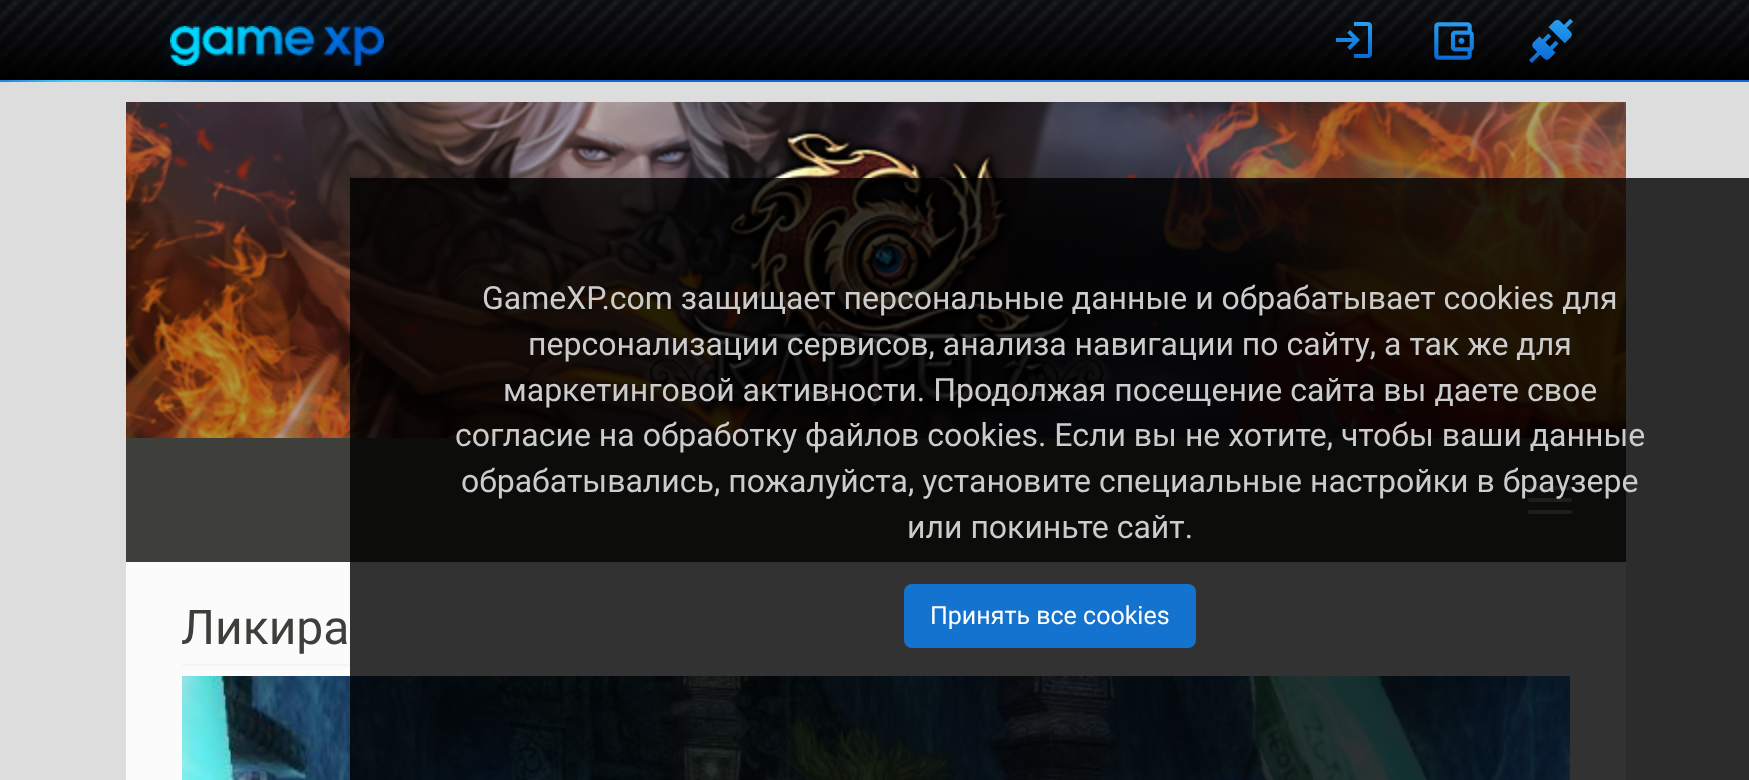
<?xml version="1.0" encoding="UTF-8"?>
<svg xmlns="http://www.w3.org/2000/svg" xmlns:xlink="http://www.w3.org/1999/xlink" width="1749" height="780">
  <rect width="100%" height="100%" fill="#dddddd" />
  <image x="0" y="0" width="1749" height="80" xlink:href="image1.png" />
  <image x="158" y="12" width="236" height="66" xlink:href="image2.png" />
  <image x="1336" y="22" width="36" height="36" xlink:href="image3.png" />
  <image x="1434" y="22" width="40" height="38" xlink:href="image4.png" />
  <image x="1529" y="18" width="44" height="45" xlink:href="image5.png" />
  <rect y="80" width="1749" height="2" fill="#0c69d4" />
  <image x="0" y="80" width="241" height="2" xlink:href="image6.png" />
  <image x="126" y="102" width="1500" height="336" xlink:href="image7.png" />
  <rect x="126" y="438" width="1500" height="124" fill="#3e3f3a" />
  <rect x="1528" y="486" width="44" height="4" rx="2" fill="#98978b" />
  <rect x="1528" y="498" width="44" height="4" rx="2" fill="#98978b" />
  <rect x="1528" y="510" width="44" height="4" rx="2" fill="#98978b" />
  <rect x="126" y="562" width="1500" height="218" fill="#fcfbfb" />
  <rect x="182" y="664" width="1388" height="2" fill="#f8f5f0" />
  <image x="182" y="676" width="1388" height="104" xlink:href="image8.png" />
  <rect x="350" y="178" width="1399" height="602" fill="#000000" fill-opacity="0.8" />
  <rect x="904" y="584" width="292" height="64" rx="8" fill="#1473ce" />
  <text x="181" y="644" style="font-family: Roboto; font-size: 48px; fill: #3e3f3a">Ликира</text>
  <text x="482" y="309" style="font-family: Roboto; font-size: 32px; fill: #cccccc">GameXP.com защищает персональные данные и обрабатывает cookies для</text>
  <text x="528" y="355" style="font-family: Roboto; font-size: 32px; fill: #cccccc">персонализации сервисов, анализа навигации по сайту, а так же для</text>
  <text x="503" y="401" style="font-family: Roboto; font-size: 32px; fill: #cccccc">маркетинговой активности. Продолжая посещение сайта вы даете свое</text>
  <text x="455" y="446" style="font-family: Roboto; font-size: 32px; fill: #cccccc">согласие на обработку файлов cookies. Если вы не хотите, чтобы ваши данные</text>
  <text x="461" y="492" style="font-family: Roboto; font-size: 32px; fill: #cccccc">обрабатывались, пожалуйста, установите специальные настройки в браузере</text>
  <text x="907" y="538" style="font-family: Roboto; font-size: 32px; fill: #cccccc">или покиньте сайт.</text>
  <text x="930" y="624" style="font-family: Roboto; font-size: 25px; fill: #ffffff">Принять все cookies</text>
</svg>
